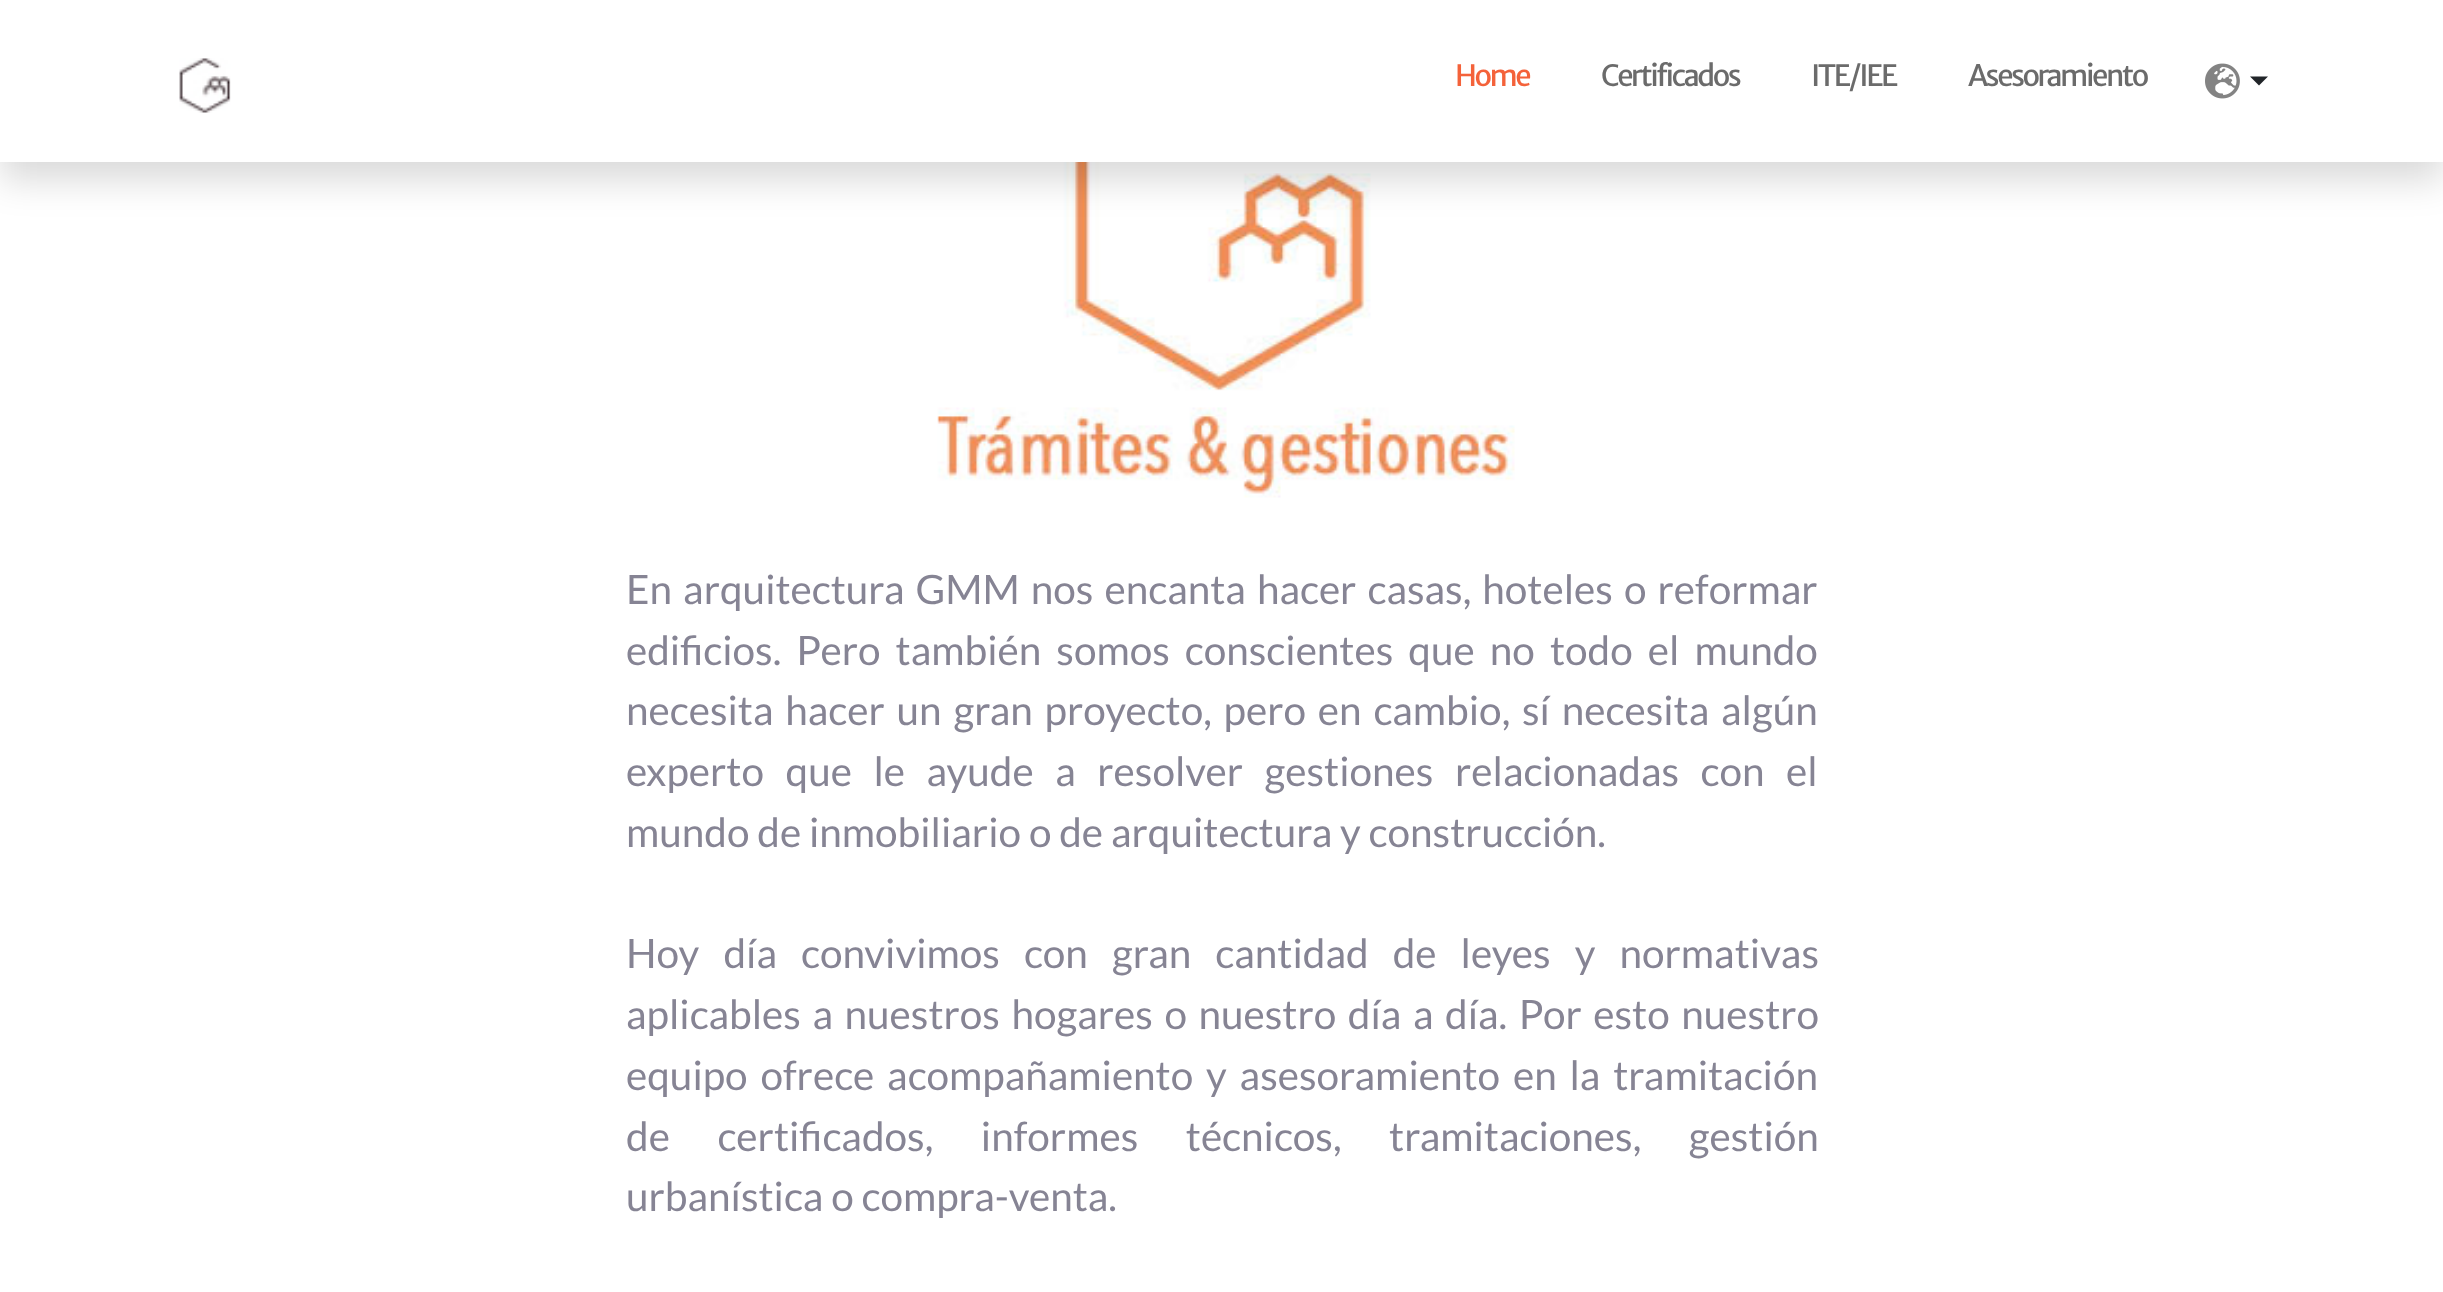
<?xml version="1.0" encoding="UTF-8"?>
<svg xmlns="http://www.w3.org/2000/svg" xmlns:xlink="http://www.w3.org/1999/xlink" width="2443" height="1292">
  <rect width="100%" height="100%" fill="#ffffff" />
  <image x="937" y="162" width="578" height="336" xlink:href="image3.png" />
  <rect y="18" width="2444" height="162" fill="#000000" fill-opacity="0.15" filter="blur(18px)" />
  <rect width="2443" height="162" fill="#ffffff" />
  <image x="179" y="58" width="52" height="55" xlink:href="image1.png" />
  <image x="2205" y="63" width="35" height="36" xlink:href="image2.png" />
  <path d="M 2250 76.5 h 18 l -9 9 z" fill="#212529" />
  <text x="1455" y="86" style="font-family: Merriweather Sans; font-size: 29.25px; letter-spacing: -2.5px; fill: #f4623a">Home</text>
  <text x="1601" y="86" style="font-family: Merriweather Sans; font-size: 29.25px; letter-spacing: -2.5px; fill: #6b6b6b">Certificados</text>
  <text x="1811" y="86" style="font-family: Merriweather Sans; font-size: 29.25px; letter-spacing: -2.5px; fill: #6b6b6b">ITE/IEE</text>
  <text x="1968" y="86" style="font-family: Merriweather Sans; font-size: 29.25px; letter-spacing: -2.5px; fill: #6b6b6b">Asesoramiento</text>
  <text x="626" y="604" word-spacing="3.25" style="font-family: Lato; font-size: 40.5px; fill: #868494">En arquitectura GMM nos encanta hacer casas, hoteles o reformar</text>
  <text x="626" y="665" word-spacing="7.25" style="font-family: Lato; font-size: 40.5px; fill: #868494">edificios. Pero también somos conscientes que no todo el mundo</text>
  <text x="626" y="725" word-spacing="4" style="font-family: Lato; font-size: 40.5px; fill: #868494">necesita hacer un gran proyecto, pero en cambio, sí necesita algún</text>
  <text x="626" y="786" word-spacing="13.75" style="font-family: Lato; font-size: 40.5px; fill: #868494">experto que le ayude a resolver gestiones relacionadas con el</text>
  <text x="626" y="847" style="font-family: Lato; font-size: 40.5px; fill: #868494">mundo de inmobiliario o de arquitectura y construcción.</text>
  <text x="626" y="968" word-spacing="16.25" style="font-family: Lato; font-size: 40.5px; fill: #868494">Hoy día convivimos con gran cantidad de leyes y normativas</text>
  <text x="626" y="1029" word-spacing="3.75" style="font-family: Lato; font-size: 40.5px; fill: #868494">aplicables a nuestros hogares o nuestro día a día. Por esto nuestro</text>
  <text x="626" y="1090" word-spacing="5" style="font-family: Lato; font-size: 40.5px; fill: #868494">equipo ofrece acompañamiento y asesoramiento en la tramitación</text>
  <text x="626" y="1151" word-spacing="39.75" style="font-family: Lato; font-size: 40.5px; fill: #868494">de certificados, informes técnicos, tramitaciones, gestión</text>
  <text x="626" y="1211" style="font-family: Lato; font-size: 40.5px; fill: #868494">urbanística o compra-venta.</text>
</svg>
